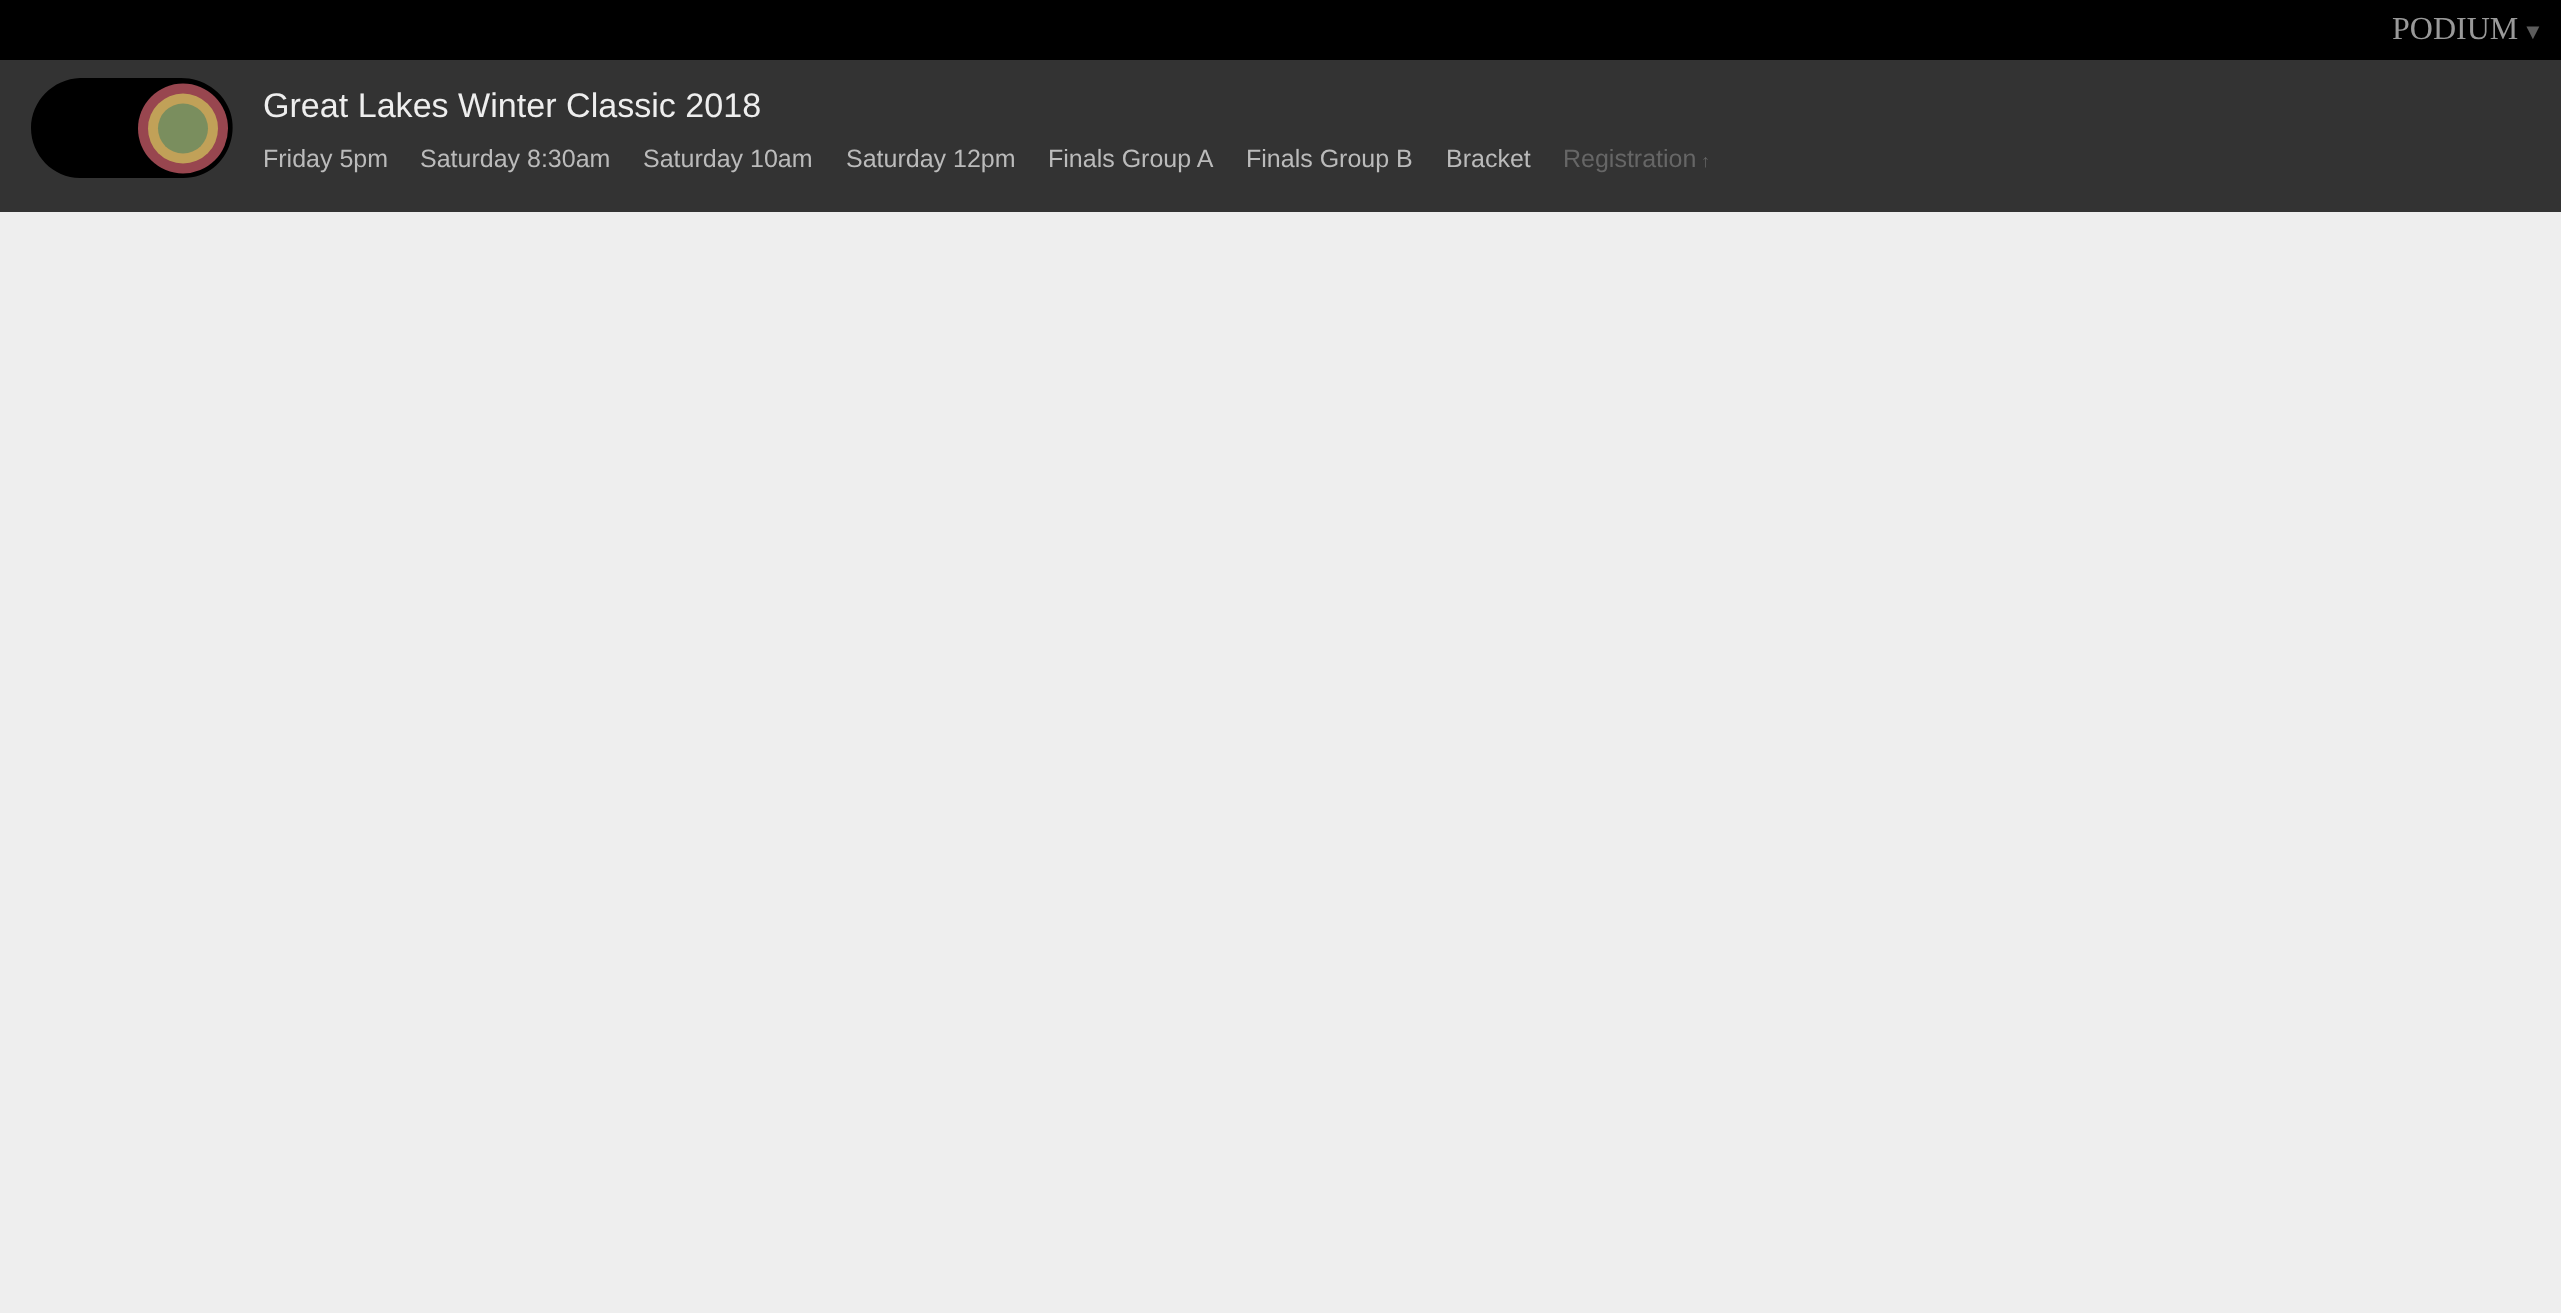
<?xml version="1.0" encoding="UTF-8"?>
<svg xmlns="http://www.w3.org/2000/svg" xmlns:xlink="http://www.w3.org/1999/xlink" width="2561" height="1313">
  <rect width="100%" height="100%" fill="#eeeeee" />
  <rect width="2561" height="60" fill="#000000" />
  <rect y="60" width="2561" height="152" fill="#333333" />
  <path d="M 31 128 c 0 -27 22 -49 49 -50 h 101 c 11 0 21 3 30 9 c 41 28 20 93 -30 91 h -101 c -27 0 -49 -23 -49 -50 z" fill="#000000" />
  <circle cx="183" cy="128.5" r="45" fill="#98464f" />
  <circle cx="183" cy="128.5" r="35" fill="#c1a158" />
  <circle cx="183" cy="128.5" r="25" fill="#7a8e5e" />
  <text x="2392" y="39" style="font-family: Liberation Serif; font-size: 32px; fill: #999999">PODIUM</text>
  <text x="2522" y="39" style="font-family: Liberation Serif; font-size: 22px; fill: #5c5c5c">▼</text>
  <text x="263" y="117" style="font-family: Liberation Sans; font-size: 34.1px; fill: #eeeeee">Great Lakes Winter Classic 2018</text>
  <text x="263" y="167" style="font-family: Liberation Sans; font-size: 25px; fill: #bbbbbb">Friday 5pm</text>
  <text x="420" y="167" style="font-family: Liberation Sans; font-size: 25px; fill: #bbbbbb">Saturday 8:30am</text>
  <text x="643" y="167" style="font-family: Liberation Sans; font-size: 25px; fill: #bbbbbb">Saturday 10am</text>
  <text x="846" y="167" style="font-family: Liberation Sans; font-size: 25px; fill: #bbbbbb">Saturday 12pm</text>
  <text x="1048" y="167" style="font-family: Liberation Sans; font-size: 25px; fill: #bbbbbb">Finals Group A</text>
  <text x="1246" y="167" style="font-family: Liberation Sans; font-size: 25px; fill: #bbbbbb">Finals Group B</text>
  <text x="1446" y="167" style="font-family: Liberation Sans; font-size: 25px; fill: #bbbbbb">Bracket</text>
  <text x="1563" y="167" style="font-family: Liberation Sans; font-size: 25px; fill: #666666">Registration</text>
  <text x="1701" y="167" style="font-family: Liberation Sans; font-size: 18px; fill: #666666">↑</text>
</svg>
